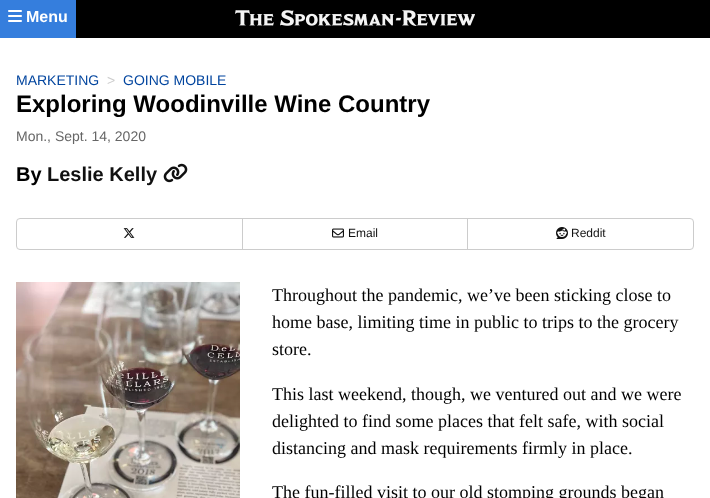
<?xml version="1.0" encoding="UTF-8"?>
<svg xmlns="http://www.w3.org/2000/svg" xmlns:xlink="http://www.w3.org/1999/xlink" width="710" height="498">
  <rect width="100%" height="100%" fill="#ffffff" />
  <rect x="76" width="634" height="38" fill="#000000" />
  <rect width="76" height="38" fill="#357edd" />
  <image x="8" y="10" width="14" height="12" xlink:href="image1.png" />
  <image x="235" y="10" width="240" height="16" xlink:href="image2.png" />
  <image x="163" y="163" width="25" height="20" xlink:href="image3.png" />
  <rect x="16.5" y="218.5" width="677" height="31" rx="3.5" fill="none" stroke="#cccccc" />
  <rect x="242" y="219" width="1" height="30" fill="#cccccc" />
  <image x="123" y="228" width="12" height="10" xlink:href="image4.png" />
  <rect x="467" y="219" width="1" height="30" fill="#cccccc" />
  <image x="332" y="228" width="12" height="10" xlink:href="image5.png" />
  <image x="556" y="227" width="12" height="12" xlink:href="image6.png" />
  <image x="16" y="282" width="224" height="216" xlink:href="image7.png" />
  <text x="26" y="22" style="font-family: Liberation Sans; font-size: 16px; font-weight: bold; fill: #ffffff">Menu</text>
  <text x="16" y="85" style="font-family: Liberation Sans; font-size: 14px; fill: #00449e">MARKETING</text>
  <text x="107" y="85" style="font-family: Liberation Sans; font-size: 14px; fill: #cccccc">&gt;</text>
  <text x="123" y="85" style="font-family: Liberation Sans; font-size: 14px; fill: #00449e">GOING MOBILE</text>
  <text x="16" y="112" style="font-family: Liberation Sans; font-size: 24px; font-weight: bold; fill: #000000">Exploring Woodinville Wine Country</text>
  <text x="16" y="141" style="font-family: Liberation Sans; font-size: 14px; fill: #666666">Mon., Sept. 14, 2020</text>
  <text x="16" y="181" style="font-family: Liberation Sans; font-size: 20px; font-weight: bold; fill: #000000">By</text>
  <text x="47" y="181" style="font-family: Liberation Sans; font-size: 20px; font-weight: bold; fill: #111111">Leslie Kelly</text>
  <text x="348" y="237" style="font-family: Liberation Sans; font-size: 12px; fill: #111111">Email</text>
  <text x="571" y="237" style="font-family: Liberation Sans; font-size: 12px; fill: #111111">Reddit</text>
  <text x="272" y="301" style="font-family: Liberation Serif; font-size: 18px; fill: #000000">Throughout the pandemic, we’ve been sticking close to</text>
  <text x="272" y="328" style="font-family: Liberation Serif; font-size: 18px; fill: #000000">home base, limiting time in public to trips to the grocery</text>
  <text x="272" y="355" style="font-family: Liberation Serif; font-size: 18px; fill: #000000">store.</text>
  <text x="272" y="400" style="font-family: Liberation Serif; font-size: 18px; fill: #000000">This last weekend, though, we ventured out and we were</text>
  <text x="272" y="427" style="font-family: Liberation Serif; font-size: 18px; fill: #000000">delighted to find some places that felt safe, with social</text>
  <text x="272" y="454" style="font-family: Liberation Serif; font-size: 18px; fill: #000000">distancing and mask requirements firmly in place.</text>
  <text x="272" y="498" style="font-family: Liberation Serif; font-size: 18px; fill: #000000">The fun-filled visit to our old stomping grounds began</text>
</svg>
